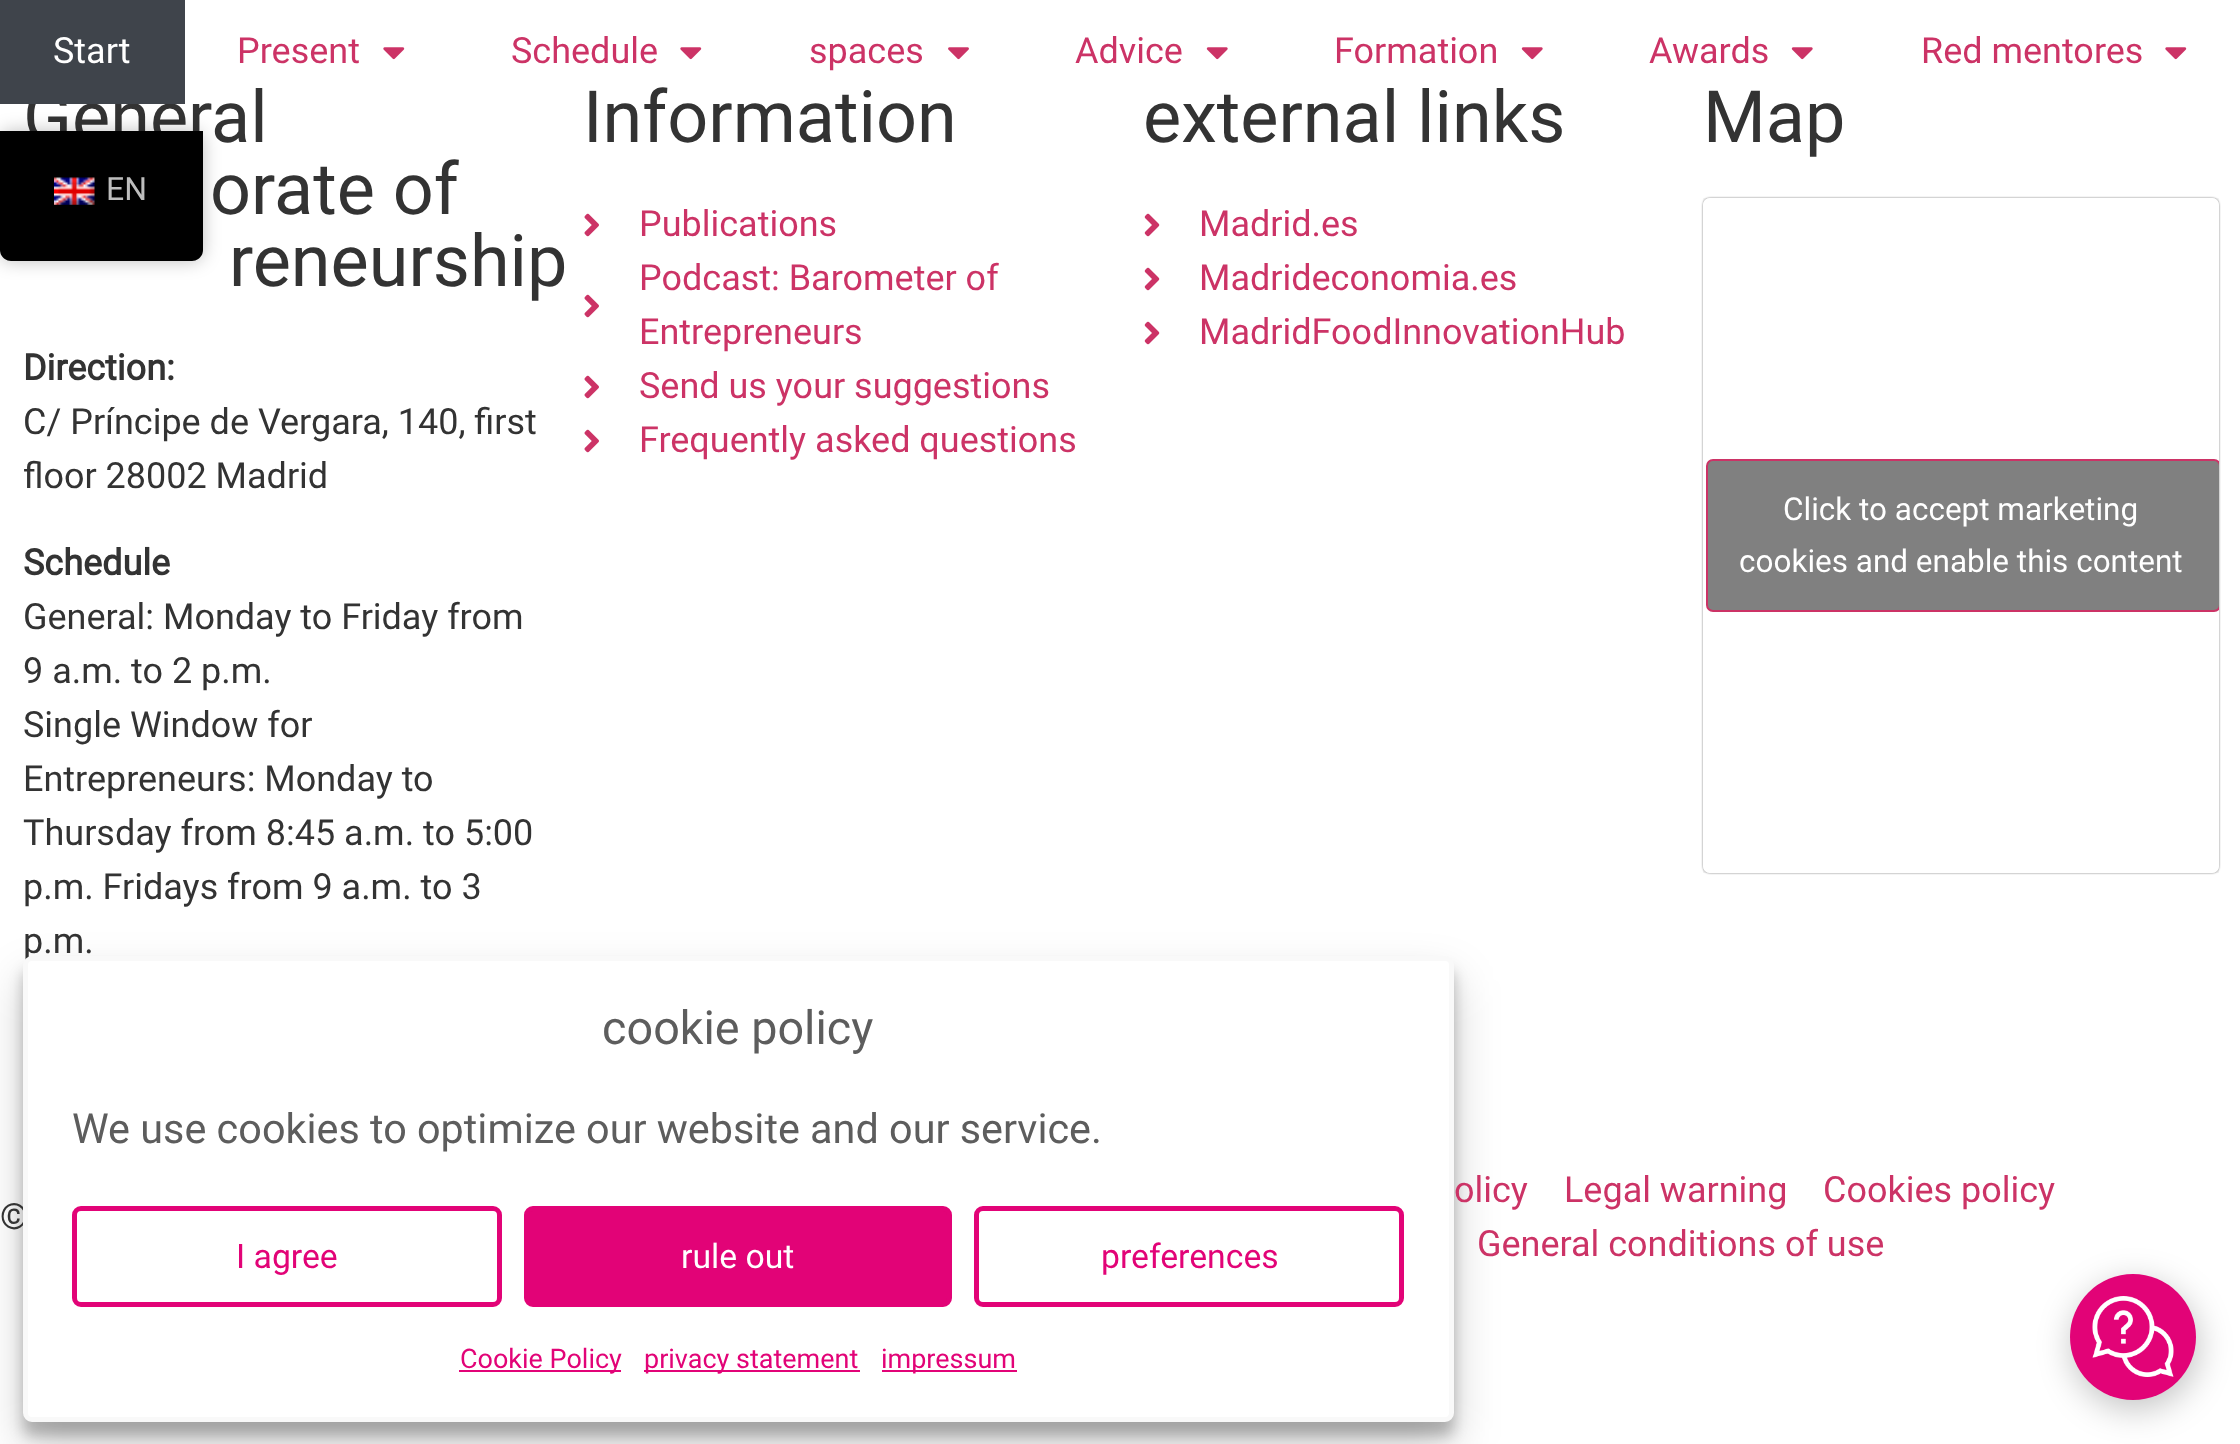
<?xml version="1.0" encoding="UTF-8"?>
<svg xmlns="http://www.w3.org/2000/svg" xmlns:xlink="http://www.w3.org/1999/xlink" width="2240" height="1444">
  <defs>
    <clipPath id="clip1"><rect x="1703" y="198" width="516" height="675" /></clipPath>
    <clipPath id="clip2"><path d="M 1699 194 h 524 v 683 h -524 z m 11 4 h 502 c 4 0 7 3 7 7 v 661 c 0 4 -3 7 -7 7 h -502 c -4 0 -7 -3 -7 -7 v -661 c 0 -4 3 -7 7 -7 z" clip-rule="evenodd" /></clipPath>
    <clipPath id="clip3"><rect x="1703" y="198" width="516" height="675" /></clipPath>
  </defs>
  <rect width="100%" height="100%" fill="#ffffff" />
  <image x="383" y="47" width="22" height="13" xlink:href="image1.png" />
  <image x="680" y="47" width="22" height="13" xlink:href="image1.png" />
  <image x="948" y="47" width="21" height="13" xlink:href="image2.png" />
  <image x="1206" y="47" width="22" height="13" xlink:href="image3.png" />
  <image x="1521" y="47" width="22" height="13" xlink:href="image3.png" />
  <image x="1791" y="47" width="22" height="13" xlink:href="image3.png" />
  <image x="2165" y="47" width="22" height="13" xlink:href="image1.png" />
  <image x="584" y="213" width="15" height="24" xlink:href="image4.png" />
  <image x="584" y="294" width="15" height="24" xlink:href="image4.png" />
  <image x="584" y="375" width="15" height="24" xlink:href="image4.png" />
  <image x="584" y="429" width="15" height="24" xlink:href="image4.png" />
  <image x="1144" y="213" width="16" height="24" xlink:href="image5.png" />
  <image x="1144" y="267" width="16" height="24" xlink:href="image5.png" />
  <image x="1144" y="321" width="16" height="24" xlink:href="image5.png" />
  <g clip-path="url(#clip1)">
    <rect x="1703" y="200" width="516" height="675" rx="7" fill="#000000" fill-opacity="0.15" filter="blur(11px)" />
  </g>
  <g clip-path="url(#clip2)">
    <rect x="1703" y="198" width="516" height="675" rx="7" fill="#000000" fill-opacity="0.5" filter="blur(1px)" />
  </g>
  <rect x="1703" y="198" width="516" height="675" rx="7" fill="#ffffff" />
  <g clip-path="url(#clip3)">
    <rect x="1707" y="460" width="513" height="151" rx="6" fill="#808080" stroke="#cc3366" stroke-width="2" />
  </g>
  <rect x="23" y="970" width="1431" height="466" rx="9" fill="#000000" fill-opacity="0.23" filter="blur(7px)" />
  <rect x="23" y="979" width="1431" height="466" rx="9" fill="#000000" fill-opacity="0.19" filter="blur(22.5px)" />
  <rect x="2072" y="1283" width="126" height="126" rx="63" fill="#000000" fill-opacity="0.24" filter="blur(17px)" />
  <circle cx="2133" cy="1337" r="63" fill="#e20377" />
  <image x="2092" y="1296" width="82" height="81" xlink:href="image7.png" />
  <text x="237" y="63" style="font-family: Roboto; font-size: 36px; fill: #cc3366">Present</text>
  <text x="511" y="63" style="font-family: Roboto; font-size: 36px; fill: #cc3366">Schedule</text>
  <text x="809" y="63" style="font-family: Roboto; font-size: 36px; fill: #cc3366">spaces</text>
  <text x="1075" y="63" style="font-family: Roboto; font-size: 36px; fill: #cc3366">Advice</text>
  <text x="1334" y="63" style="font-family: Roboto; font-size: 36px; fill: #cc3366">Formation</text>
  <text x="1649" y="63" style="font-family: Roboto; font-size: 36px; fill: #cc3366">Awards</text>
  <text x="1921" y="63" style="font-family: Roboto; font-size: 36px; fill: #cc3366">Red mentores</text>
  <text x="23" y="142" style="font-family: Roboto; font-size: 72px; fill: #333333">General</text>
  <rect width="185" height="104" fill="#3f444b" />
  <text x="53" y="63" style="font-family: Roboto; font-size: 36px; fill: #ffffff">Start</text>
  <text x="210" y="214" style="font-family: Roboto; font-size: 72px; fill: #333333">orate of</text>
  <text x="229" y="286" style="font-family: Roboto; font-size: 72px; fill: #333333">reneurship</text>
  <text x="23" y="380" style="font-family: Roboto; font-size: 36px; font-weight: bold; fill: #333333">Direction:</text>
  <text x="23" y="434" style="font-family: Roboto; font-size: 36px; fill: #333333">C/ Príncipe de Vergara, 140, first</text>
  <text x="23" y="488" style="font-family: Roboto; font-size: 36px; fill: #333333">floor 28002 Madrid</text>
  <text x="23" y="575" style="font-family: Roboto; font-size: 36px; font-weight: bold; fill: #333333">Schedule</text>
  <text x="23" y="629" style="font-family: Roboto; font-size: 36px; fill: #333333">General: Monday to Friday from</text>
  <text x="23" y="683" style="font-family: Roboto; font-size: 36px; fill: #333333">9 a.m. to 2 p.m.</text>
  <text x="23" y="737" style="font-family: Roboto; font-size: 36px; fill: #333333">Single Window for</text>
  <text x="23" y="791" style="font-family: Roboto; font-size: 36px; fill: #333333">Entrepreneurs: Monday to</text>
  <text x="23" y="845" style="font-family: Roboto; font-size: 36px; fill: #333333">Thursday from 8:45 a.m. to 5:00</text>
  <text x="23" y="899" style="font-family: Roboto; font-size: 36px; fill: #333333">p.m. Fridays from 9 a.m. to 3</text>
  <text x="23" y="953" style="font-family: Roboto; font-size: 36px; fill: #333333">p.m.</text>
  <text x="583" y="142" style="font-family: Roboto; font-size: 72px; fill: #333333">Information</text>
  <text x="639" y="236" style="font-family: Roboto; font-size: 36px; fill: #cc3366">Publications</text>
  <text x="639" y="290" style="font-family: Roboto; font-size: 36px; fill: #cc3366">Podcast: Barometer of</text>
  <text x="639" y="344" style="font-family: Roboto; font-size: 36px; fill: #cc3366">Entrepreneurs</text>
  <text x="639" y="398" style="font-family: Roboto; font-size: 36px; fill: #cc3366">Send us your suggestions</text>
  <text x="639" y="452" style="font-family: Roboto; font-size: 36px; fill: #cc3366">Frequently asked questions</text>
  <text x="1143" y="142" style="font-family: Roboto; font-size: 72px; fill: #333333">external links</text>
  <text x="1199" y="236" style="font-family: Roboto; font-size: 36px; fill: #cc3366">Madrid.es</text>
  <text x="1199" y="290" style="font-family: Roboto; font-size: 36px; fill: #cc3366">Madrideconomia.es</text>
  <text x="1199" y="344" style="font-family: Roboto; font-size: 36px; fill: #cc3366">MadridFoodInnovationHub</text>
  <text x="1703" y="142" style="font-family: Roboto; font-size: 72px; fill: #333333">Map</text>
  <text x="1783" y="520" style="font-family: Roboto; font-size: 31.5px; fill: #ffffff">Click to accept marketing</text>
  <text x="1739" y="572" style="font-family: Roboto; font-size: 31.5px; fill: #ffffff">cookies and enable this content</text>
  <text x="0" y="1229" style="font-family: Roboto; font-size: 36px; fill: #333333">©</text>
  <text x="1454" y="1202" style="font-family: Roboto; font-size: 36px; fill: #cc3366">olicy</text>
  <text x="1564" y="1202" style="font-family: Roboto; font-size: 36px; fill: #cc3366">Legal warning</text>
  <text x="1823" y="1202" style="font-family: Roboto; font-size: 36px; fill: #cc3366">Cookies policy</text>
  <text x="1477" y="1256" style="font-family: Roboto; font-size: 36px; fill: #cc3366">General conditions of use</text>
  <rect y="131" width="203" height="130" rx="11" fill="#000000" fill-opacity="0.25" filter="blur(9px)" />
  <path d="M 0 131 h 203 v 119 c 0 6 -5 11 -11 11 h -181 c -6 0 -11 -5 -11 -11 z" fill="#000000" />
  <image x="54" y="177" width="41" height="28" xlink:href="image6.png" />
  <text x="106" y="200" style="font-family: Roboto; font-size: 32px; fill: #bdbdbd">EN</text>
  <rect x="25.5" y="958.5" width="1426" height="461" rx="6.5" fill="#ffffff" stroke="#f9f9f9" stroke-width="5" />
  <text x="602" y="1044" style="font-family: Roboto; font-size: 46.75px; fill: #5d5d5d">cookie policy</text>
  <text x="72" y="1143" style="font-family: Roboto; font-size: 41.4px; fill: #5d5d5d">We use cookies to optimize our website and our service.</text>
  <rect x="74.5" y="1208.5" width="425" height="96" rx="6.5" fill="none" stroke="#e20377" stroke-width="5" />
  <text x="236" y="1268" style="font-family: Roboto; font-size: 33.75px; fill: #e20377">I agree</text>
  <rect x="526.5" y="1208.5" width="423" height="96" rx="6.5" fill="#e20377" stroke="#e20377" stroke-width="5" />
  <text x="681" y="1268" style="font-family: Roboto; font-size: 33.75px; fill: #ffffff">rule out</text>
  <rect x="976.5" y="1208.5" width="425" height="96" rx="6.5" fill="none" stroke="#e20377" stroke-width="5" />
  <text x="1101" y="1268" style="font-family: Roboto; font-size: 33.75px; fill: #e20377">preferences</text>
  <rect x="459" y="1370" width="162" height="2" fill="#e20377" />
  <text x="460" y="1368" style="font-family: Roboto; font-size: 27px; fill: #e20377">Cookie Policy</text>
  <rect x="644" y="1370" width="216" height="2" fill="#e20377" />
  <text x="644" y="1368" style="font-family: Roboto; font-size: 27px; fill: #e20377">privacy statement</text>
  <rect x="882" y="1370" width="135" height="2" fill="#e20377" />
  <text x="881" y="1368" style="font-family: Roboto; font-size: 27px; fill: #e20377">impressum</text>
</svg>
